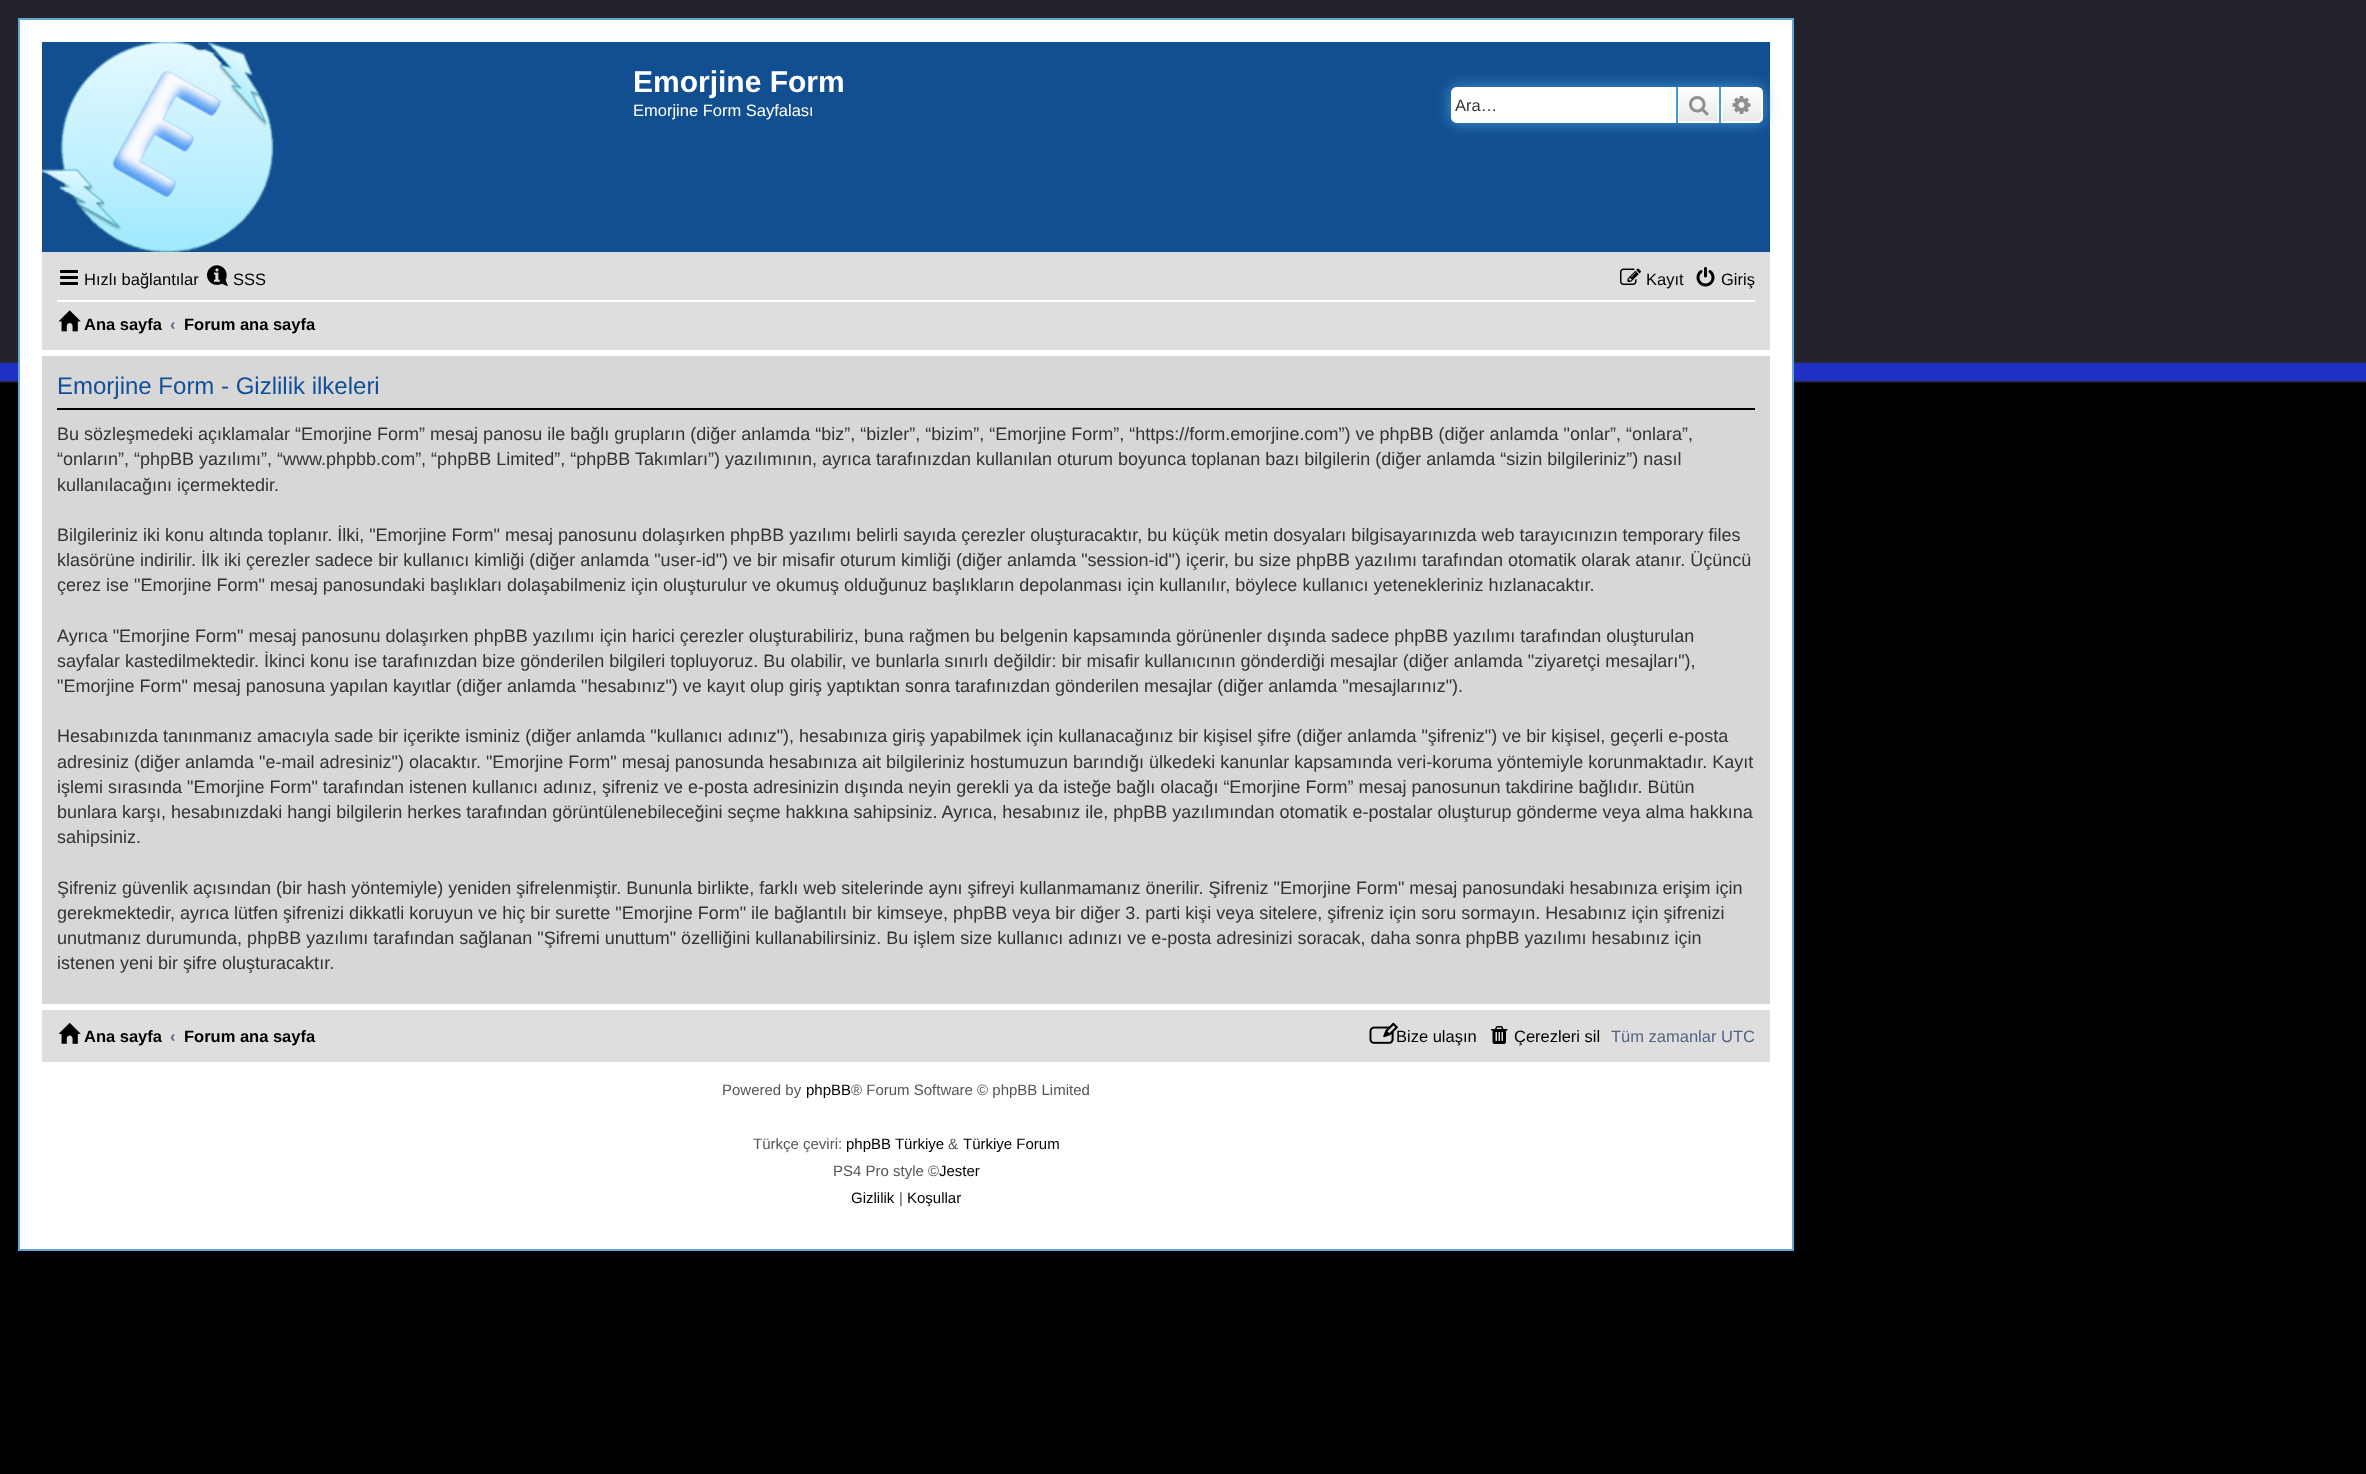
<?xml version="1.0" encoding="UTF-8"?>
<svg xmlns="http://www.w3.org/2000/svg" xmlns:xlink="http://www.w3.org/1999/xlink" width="2366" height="1474">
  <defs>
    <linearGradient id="g1" gradientUnits="userSpaceOnUse" x1="1698" y1="87" x2="1698" y2="123"><stop offset="0" stop-color="#ffffff" /><stop offset="1" stop-color="#e9e9e9" /></linearGradient>
    <linearGradient id="g2" gradientUnits="userSpaceOnUse" x1="1742" y1="87" x2="1742" y2="123"><stop offset="0" stop-color="#ffffff" /><stop offset="1" stop-color="#e9e9e9" /></linearGradient>
  </defs>
  <rect width="100%" height="100%" fill="#000000" />
  <image x="0" y="0" width="2366" height="383" xlink:href="image1.png" />
  <rect x="19" y="19" width="1774" height="1231" fill="#ffffff" stroke="#5fa8d3" stroke-width="2" />
  <rect x="274" y="42" width="1496" height="210" fill="#124f91" />
  <image x="42" y="42" width="232" height="210" xlink:href="image2.png" />
  <rect x="1451" y="87" width="312" height="36" rx="6" fill="#4498d4" filter="blur(7.5px)" />
  <path d="M 1457 87 h 219 v 36 h -219 c -3.5 0 -6 -2.5 -6 -6 v -24 c 0 -3.5 2.5 -6 6 -6 z" fill="#ffffff" />
  <rect x="1679" y="89" width="38" height="32" fill="url(#g1)" />
  <rect x="1678" y="88" width="40" height="34" fill="none" stroke="#ffffff" stroke-width="2" />
  <rect x="1719" y="87" width="2" height="36" fill="#4498d4" />
  <rect x="1676" y="87" width="2" height="36" fill="#4498d4" />
  <image x="1689" y="96" width="20" height="20" xlink:href="image3.png" />
  <path d="M 1722 88 h 35 c 3 0 5 2 5 5 v 24 c 0 3 -2 5 -5 5 h -35 z" fill="url(#g2)" stroke="#ffffff" stroke-width="2" />
  <image x="1732" y="96" width="19" height="18" xlink:href="image4.png" />
  <rect x="42" y="252" width="1728" height="98" fill="#dedede" />
  <image x="60" y="270" width="18" height="15" xlink:href="image5.png" />
  <image x="207" y="265" width="21" height="22" xlink:href="image6.png" />
  <image x="1620" y="268" width="21" height="17" xlink:href="image7.png" />
  <image x="1696" y="267" width="19" height="20" xlink:href="image8.png" />
  <rect x="57" y="300" width="1698" height="2" fill="#ffffff" />
  <image x="58" y="310" width="23" height="22" xlink:href="image9.png" />
  <rect x="42" y="356" width="1728" height="648" fill="#d7d7d7" />
  <rect x="57" y="408" width="1698" height="2" fill="#000000" />
  <rect x="42" y="1010" width="1728" height="52" fill="#dedede" />
  <image x="58" y="1022" width="23" height="22" xlink:href="image10.png" />
  <image x="1369" y="1022" width="29" height="22" xlink:href="image11.png" />
  <image x="1491" y="1026" width="17" height="18" xlink:href="image12.png" />
  <text x="633" y="92" style="font-family: Liberation Sans; font-size: 30px; font-weight: bold; fill: #ffffff">Emorjine Form</text>
  <text x="633" y="116" style="font-family: Liberation Sans; font-size: 16.5px; fill: #ffffff">Emorjine Form Sayfalası</text>
  <text x="1455" y="111" style="font-family: Liberation Sans; font-size: 16.5px; fill: #333333">Ara…</text>
  <text x="84" y="285" style="font-family: Liberation Sans; font-size: 16.5px; fill: #000000">Hızlı bağlantılar</text>
  <text x="233" y="285" style="font-family: Liberation Sans; font-size: 16.5px; fill: #000000">SSS</text>
  <text x="1646" y="285" style="font-family: Liberation Sans; font-size: 16.5px; fill: #000000">Kayıt</text>
  <text x="1721" y="285" style="font-family: Liberation Sans; font-size: 16.5px; fill: #000000">Giriş</text>
  <text x="84" y="330" style="font-family: Liberation Sans; font-size: 16.5px; font-weight: bold; fill: #000000">Ana sayfa</text>
  <text x="170" y="330" style="font-family: Liberation Sans; font-size: 16.5px; font-weight: bold; fill: #536482">‹</text>
  <text x="184" y="330" style="font-family: Liberation Sans; font-size: 16.5px; font-weight: bold; fill: #000000">Forum ana sayfa</text>
  <text x="57" y="394" style="font-family: Liberation Sans; font-size: 24px; fill: #115098">Emorjine Form - Gizlilik ilkeleri</text>
  <text x="57" y="440" style="font-family: Liberation Sans; font-size: 18px; fill: #333333">Bu sözleşmedeki açıklamalar “Emorjine Form” mesaj panosu ile bağlı grupların (diğer anlamda “biz”, “bizler”, “bizim”, “Emorjine Form”, “https://form.emorjine.com”) ve phpBB (diğer anlamda "onlar”, “onlara”,</text>
  <text x="57" y="465" style="font-family: Liberation Sans; font-size: 18px; fill: #333333">“onların”, “phpBB yazılımı”, “www.phpbb.com”, “phpBB Limited”, “phpBB Takımları”) yazılımının, ayrıca tarafınızdan kullanılan oturum boyunca toplanan bazı bilgilerin (diğer anlamda “sizin bilgileriniz”) nasıl</text>
  <text x="57" y="491" style="font-family: Liberation Sans; font-size: 18px; fill: #333333">kullanılacağını içermektedir.</text>
  <text x="57" y="541" style="font-family: Liberation Sans; font-size: 18px; fill: #333333">Bilgileriniz iki konu altında toplanır. İlki, "Emorjine Form" mesaj panosunu dolaşırken phpBB yazılımı belirli sayıda çerezler oluşturacaktır, bu küçük metin dosyaları bilgisayarınızda web tarayıcınızın temporary files</text>
  <text x="57" y="566" style="font-family: Liberation Sans; font-size: 18px; fill: #333333">klasörüne indirilir. İlk iki çerezler sadece bir kullanıcı kimliği (diğer anlamda "user-id") ve bir misafir oturum kimliği (diğer anlamda "session-id") içerir, bu size phpBB yazılımı tarafından otomatik olarak atanır. Üçüncü</text>
  <text x="57" y="591" style="font-family: Liberation Sans; font-size: 18px; fill: #333333">çerez ise "Emorjine Form" mesaj panosundaki başlıkları dolaşabilmeniz için oluşturulur ve okumuş olduğunuz başlıkların depolanması için kullanılır, böylece kullanıcı yetenekleriniz hızlanacaktır.</text>
  <text x="57" y="642" style="font-family: Liberation Sans; font-size: 18px; fill: #333333">Ayrıca "Emorjine Form" mesaj panosunu dolaşırken phpBB yazılımı için harici çerezler oluşturabiliriz, buna rağmen bu belgenin kapsamında görünenler dışında sadece phpBB yazılımı tarafından oluşturulan</text>
  <text x="57" y="667" style="font-family: Liberation Sans; font-size: 18px; fill: #333333">sayfalar kastedilmektedir. İkinci konu ise tarafınızdan bize gönderilen bilgileri topluyoruz. Bu olabilir, ve bunlarla sınırlı değildir: bir misafir kullanıcının gönderdiği mesajlar (diğer anlamda "ziyaretçi mesajları"),</text>
  <text x="57" y="692" style="font-family: Liberation Sans; font-size: 18px; fill: #333333">"Emorjine Form" mesaj panosuna yapılan kayıtlar (diğer anlamda "hesabınız") ve kayıt olup giriş yaptıktan sonra tarafınızdan gönderilen mesajlar (diğer anlamda "mesajlarınız").</text>
  <text x="57" y="742" style="font-family: Liberation Sans; font-size: 18px; fill: #333333">Hesabınızda tanınmanız amacıyla sade bir içerikte isminiz (diğer anlamda "kullanıcı adınız"), hesabınıza giriş yapabilmek için kullanacağınız bir kişisel şifre (diğer anlamda "şifreniz") ve bir kişisel, geçerli e-posta</text>
  <text x="57" y="768" style="font-family: Liberation Sans; font-size: 18px; fill: #333333">adresiniz (diğer anlamda "e-mail adresiniz") olacaktır. "Emorjine Form" mesaj panosunda hesabınıza ait bilgileriniz hostumuzun barındığı ülkedeki kanunlar kapsamında veri-koruma yöntemiyle korunmaktadır. Kayıt</text>
  <text x="57" y="793" style="font-family: Liberation Sans; font-size: 18px; fill: #333333">işlemi sırasında "Emorjine Form" tarafından istenen kullanıcı adınız, şifreniz ve e-posta adresinizin dışında neyin gerekli ya da isteğe bağlı olacağı “Emorjine Form” mesaj panosunun takdirine bağlıdır. Bütün</text>
  <text x="57" y="818" style="font-family: Liberation Sans; font-size: 18px; fill: #333333">bunlara karşı, hesabınızdaki hangi bilgilerin herkes tarafından görüntülenebileceğini seçme hakkına sahipsiniz. Ayrıca, hesabınız ile, phpBB yazılımından otomatik e-postalar oluşturup gönderme veya alma hakkına</text>
  <text x="57" y="843" style="font-family: Liberation Sans; font-size: 18px; fill: #333333">sahipsiniz.</text>
  <text x="57" y="894" style="font-family: Liberation Sans; font-size: 18px; fill: #333333">Şifreniz güvenlik açısından (bir hash yöntemiyle) yeniden şifrelenmiştir. Bununla birlikte, farklı web sitelerinde aynı şifreyi kullanmamanız önerilir. Şifreniz "Emorjine Form" mesaj panosundaki hesabınıza erişim için</text>
  <text x="57" y="919" style="font-family: Liberation Sans; font-size: 18px; fill: #333333">gerekmektedir, ayrıca lütfen şifrenizi dikkatli koruyun ve hiç bir surette "Emorjine Form" ile bağlantılı bir kimseye, phpBB veya bir diğer 3. parti kişi veya sitelere, şifreniz için soru sormayın. Hesabınız için şifrenizi</text>
  <text x="57" y="944" style="font-family: Liberation Sans; font-size: 18px; fill: #333333">unutmanız durumunda, phpBB yazılımı tarafından sağlanan "Şifremi unuttum" özelliğini kullanabilirsiniz. Bu işlem size kullanıcı adınızı ve e-posta adresinizi soracak, daha sonra phpBB yazılımı hesabınız için</text>
  <text x="57" y="969" style="font-family: Liberation Sans; font-size: 18px; fill: #333333">istenen yeni bir şifre oluşturacaktır.</text>
  <text x="84" y="1042" style="font-family: Liberation Sans; font-size: 16.5px; font-weight: bold; fill: #000000">Ana sayfa</text>
  <text x="170" y="1042" style="font-family: Liberation Sans; font-size: 16.5px; font-weight: bold; fill: #536482">‹</text>
  <text x="184" y="1042" style="font-family: Liberation Sans; font-size: 16.5px; font-weight: bold; fill: #000000">Forum ana sayfa</text>
  <text x="1396" y="1042" style="font-family: Liberation Sans; font-size: 16.5px; fill: #000000">Bize ulaşın</text>
  <text x="1514" y="1042" style="font-family: Liberation Sans; font-size: 16.5px; fill: #000000">Çerezleri sil</text>
  <text x="1611" y="1042" style="font-family: Liberation Sans; font-size: 16.5px; fill: #536482">Tüm zamanlar UTC</text>
  <text x="722" y="1095" style="font-family: Liberation Sans; font-size: 15px; fill: #555555">Powered by</text>
  <text x="806" y="1095" style="font-family: Liberation Sans; font-size: 15px; fill: #000000">phpBB</text>
  <text x="851" y="1095" style="font-family: Liberation Sans; font-size: 15px; fill: #555555">® Forum Software © phpBB Limited</text>
  <text x="753" y="1149" style="font-family: Liberation Sans; font-size: 15px; fill: #555555">Türkçe çeviri:</text>
  <text x="846" y="1149" style="font-family: Liberation Sans; font-size: 15px; fill: #000000">phpBB Türkiye</text>
  <text x="948" y="1149" style="font-family: Liberation Sans; font-size: 15px; fill: #555555">&amp;</text>
  <text x="963" y="1149" style="font-family: Liberation Sans; font-size: 15px; fill: #000000">Türkiye Forum</text>
  <text x="833" y="1176" style="font-family: Liberation Sans; font-size: 15px; fill: #555555">PS4 Pro style ©</text>
  <text x="939" y="1176" style="font-family: Liberation Sans; font-size: 15px; fill: #000000">Jester</text>
  <text x="851" y="1203" style="font-family: Liberation Sans; font-size: 15px; fill: #000000">Gizlilik</text>
  <text x="899" y="1203" style="font-family: Liberation Sans; font-size: 15px; fill: #555555">|</text>
  <text x="907" y="1203" style="font-family: Liberation Sans; font-size: 15px; fill: #000000">Koşullar</text>
</svg>
